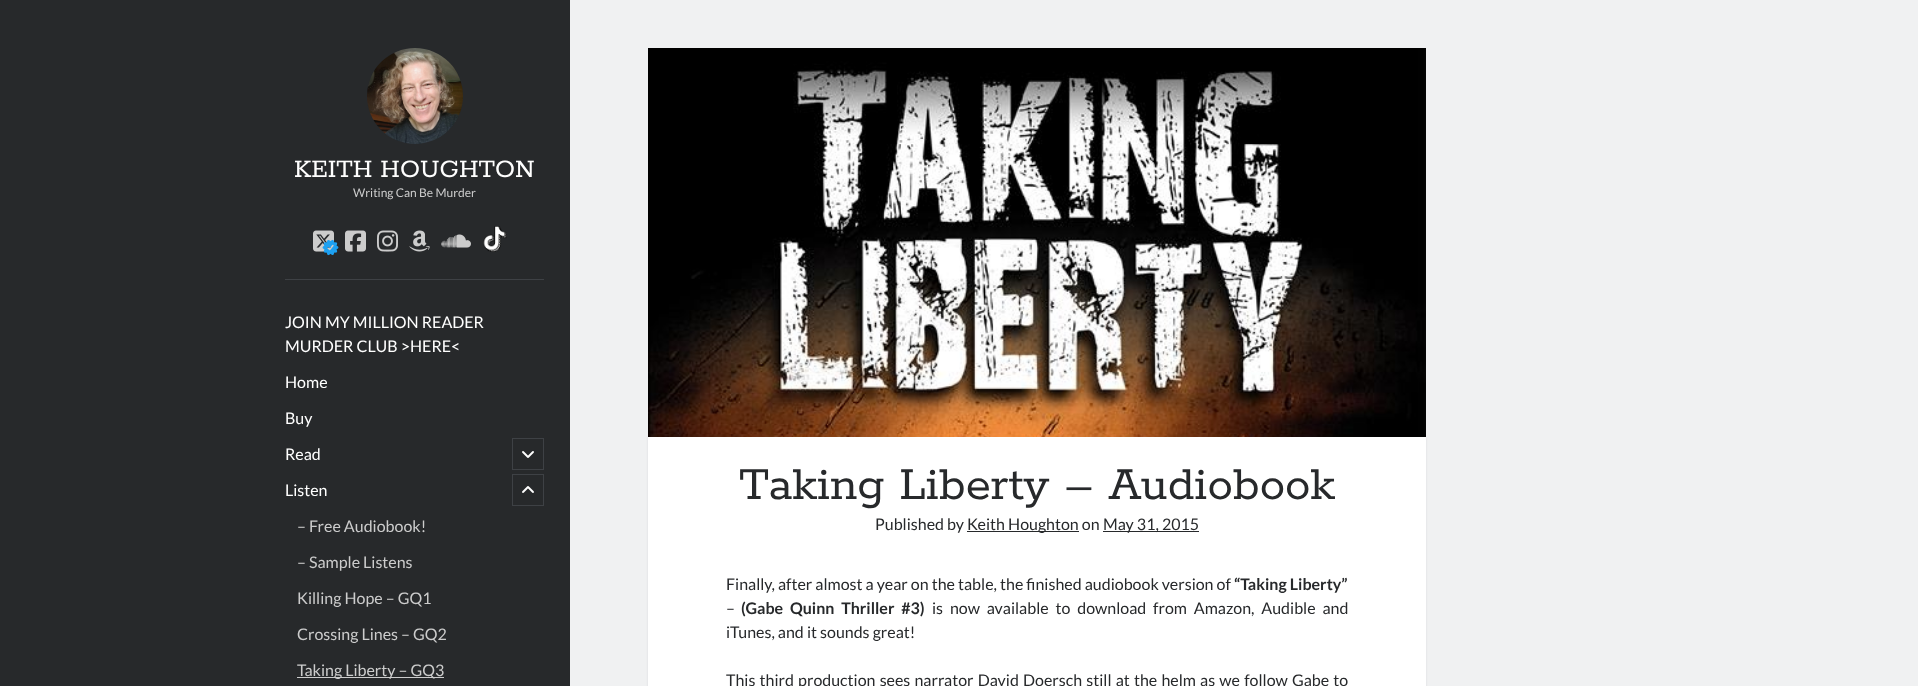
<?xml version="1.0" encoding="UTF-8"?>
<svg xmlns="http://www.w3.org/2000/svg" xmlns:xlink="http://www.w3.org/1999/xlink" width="1918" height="686">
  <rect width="100%" height="100%" fill="#27292b" />
  <rect x="570" width="1348" height="686" fill="#f0f1f2" />
  <image x="367" y="48" width="96" height="96" xlink:href="image1.png" />
  <image x="313" y="230" width="21" height="22" xlink:href="image2.png" />
  <image x="322" y="239" width="17" height="17" xlink:href="image3.png" />
  <image x="345" y="230" width="21" height="22" xlink:href="image4.png" />
  <image x="377" y="230" width="21" height="22" xlink:href="image5.png" />
  <image x="409" y="230" width="21" height="22" xlink:href="image6.png" />
  <image x="441" y="234" width="30" height="14" xlink:href="image7.png" />
  <image x="483" y="226" width="24" height="26" xlink:href="image8.png" />
  <rect x="285" y="279" width="259" height="1" fill="#3e4145" />
  <rect x="512.5" y="438.5" width="31" height="31" fill="none" stroke="#3e4145" />
  <image x="522" y="451" width="12" height="7" xlink:href="image9.png" />
  <rect x="512.5" y="474.5" width="31" height="31" fill="none" stroke="#3e4145" />
  <image x="522" y="486" width="12" height="7" xlink:href="image10.png" />
  <rect x="297" y="677" width="147" height="1" fill="#cccccc" />
  <rect x="648" y="437" width="778" height="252" fill="#272b2f" fill-opacity="0.1" filter="blur(1px)" />
  <image x="648" y="48" width="778" height="389" xlink:href="image11.png" />
  <rect x="648" y="437" width="778" height="249" fill="#ffffff" />
  <rect x="967" y="531" width="112" height="1" fill="#27292b" />
  <rect x="1103" y="531" width="96" height="1" fill="#27292b" />
  <text x="294" y="177" style="font-family: Rokkitt; font-size: 28px; fill: #ffffff">KEITH HOUGHTON</text>
  <text x="353" y="197" style="font-family: Lato; font-size: 12px; fill: #cccccc">Writing Can Be Murder</text>
  <text x="285" y="328" style="font-family: Lato; font-size: 16px; fill: #ffffff">JOIN MY MILLION READER</text>
  <text x="285" y="352" style="font-family: Lato; font-size: 16px; fill: #ffffff">MURDER CLUB &gt;HERE&lt;</text>
  <text x="285" y="388" style="font-family: Lato; font-size: 16px; fill: #ffffff">Home</text>
  <text x="285" y="424" style="font-family: Lato; font-size: 16px; fill: #ffffff">Buy</text>
  <text x="285" y="460" style="font-family: Lato; font-size: 16px; fill: #ffffff">Read</text>
  <text x="285" y="496" style="font-family: Lato; font-size: 16px; fill: #ffffff">Listen</text>
  <text x="297" y="532" style="font-family: Lato; font-size: 16px; fill: #cccccc">– Free Audiobook!</text>
  <text x="297" y="568" style="font-family: Lato; font-size: 16px; fill: #cccccc">– Sample Listens</text>
  <text x="297" y="604" style="font-family: Lato; font-size: 16px; fill: #cccccc">Killing Hope – GQ1</text>
  <text x="297" y="640" style="font-family: Lato; font-size: 16px; fill: #cccccc">Crossing Lines – GQ2</text>
  <text x="297" y="676" style="font-family: Lato; font-size: 16px; fill: #cccccc">Taking Liberty – GQ3</text>
  <text x="739" y="499" style="font-family: Rokkitt; font-size: 51px; fill: #27292b">Taking Liberty – Audiobook</text>
  <text x="875" y="530" style="font-family: Lato; font-size: 16px; fill: #27292b">Published by</text>
  <text x="967" y="530" style="font-family: Lato; font-size: 16px; fill: #27292b">Keith Houghton on</text>
  <text x="1103" y="530" style="font-family: Lato; font-size: 16px; fill: #27292b">May 31, 2015</text>
  <text x="726" y="590" style="font-family: Lato; font-size: 16px; fill: #27292b">Finally, after almost a year on the table, the finished audiobook version of</text>
  <text x="1234" y="590" style="font-family: Lato; font-size: 16px; font-weight: bold; fill: #27292b">“Taking Liberty”</text>
  <text x="726" y="614" style="font-family: Lato; font-size: 16px; fill: #27292b">–</text>
  <text x="741" y="614" word-spacing="3.75" style="font-family: Lato; font-size: 16px; font-weight: bold; fill: #27292b">(Gabe Quinn Thriller #3)</text>
  <text x="932" y="614" word-spacing="3.75" style="font-family: Lato; font-size: 16px; fill: #27292b">is now available to download from Amazon, Audible and</text>
  <text x="726" y="638" style="font-family: Lato; font-size: 16px; fill: #27292b">iTunes, and it sounds great!</text>
  <text x="726" y="686" word-spacing="1.1" style="font-family: Lato; font-size: 16px; fill: #27292b">This third production sees narrator David Doersch still at the helm as we follow Gabe to</text>
</svg>
